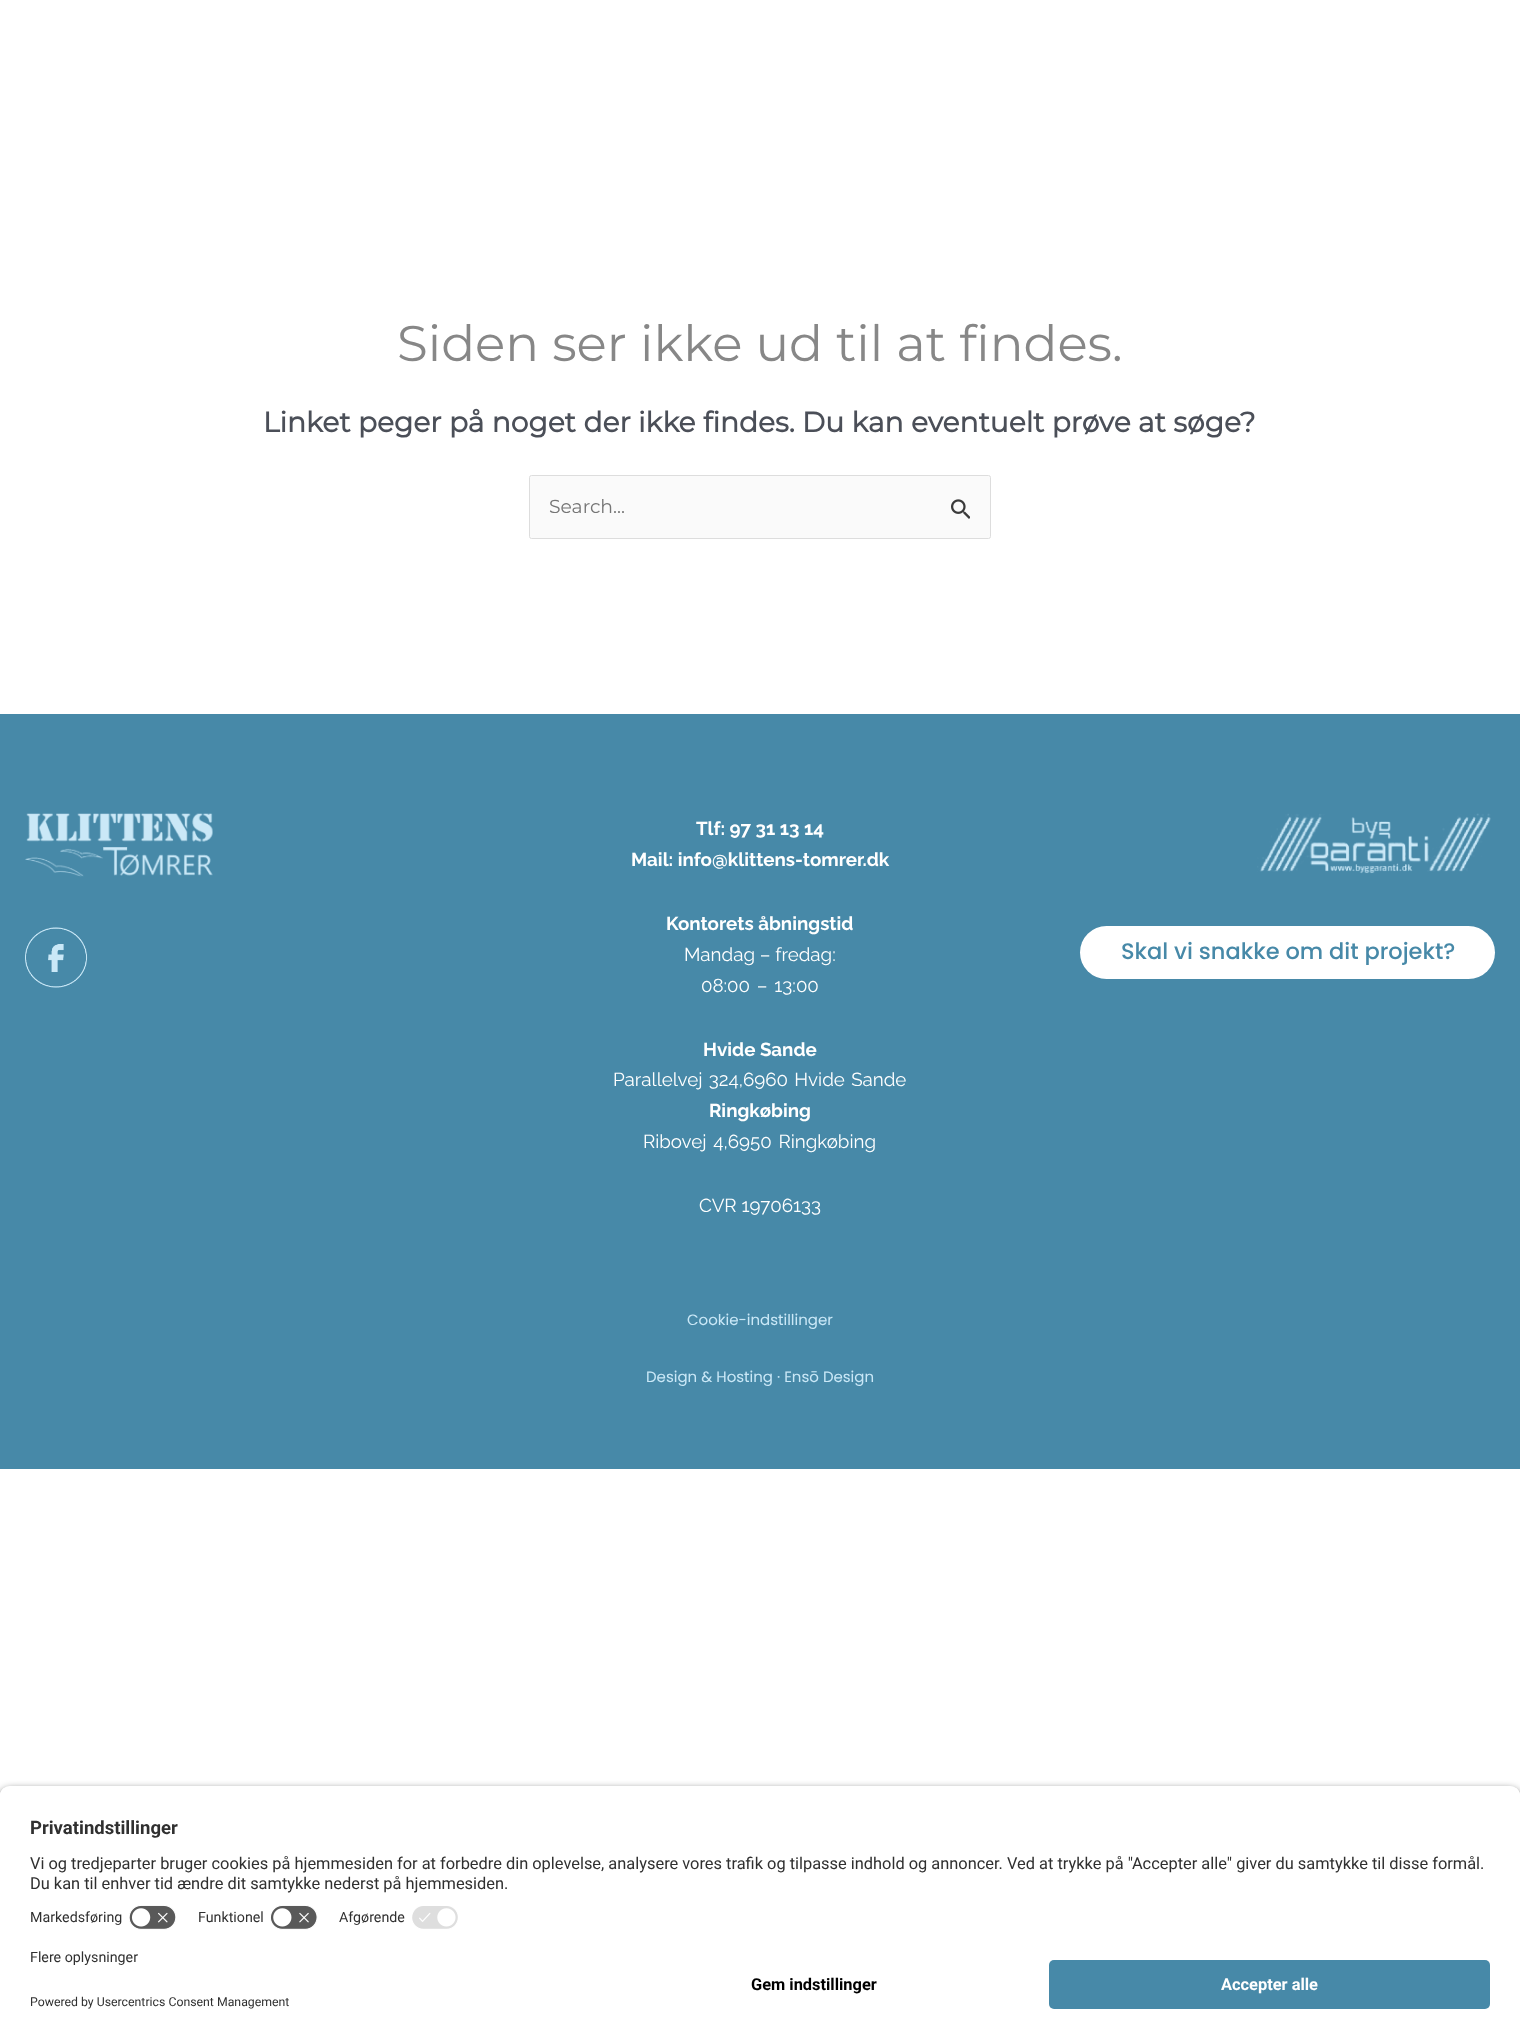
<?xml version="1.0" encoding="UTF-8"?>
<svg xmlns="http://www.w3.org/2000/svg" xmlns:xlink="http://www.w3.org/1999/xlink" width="1520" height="2038">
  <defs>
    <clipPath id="clip1"><path d="M 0 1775 h 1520 v 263 h -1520 z m 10 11 h 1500 c 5.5 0 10 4.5 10 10 v 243 h -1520 v -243 c 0 -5.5 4.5 -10 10 -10 z" clip-rule="evenodd" /></clipPath>
    <clipPath id="clip2"><path d="M 10 1786 h 1500 c 5.5 0 10 4.5 10 10 v 154 h -1520 v -154 c 0 -5.5 4.5 -10 10 -10 z" /></clipPath>
  </defs>
  <rect width="100%" height="100%" fill="#ffffff" />
  <rect x="529.5" y="475.5" width="461" height="63" rx="2" fill="#fafafa" stroke="#dddddd" />
  <image x="951" y="499" width="19" height="20" xlink:href="image1.png" />
  <rect y="714" width="1520" height="755" fill="#4789a8" />
  <image x="25" y="813" width="188" height="64" xlink:href="image2.png" />
  <image x="25" y="927" width="63" height="61" xlink:href="image3.png" />
  <image x="1257" y="813" width="234" height="61" xlink:href="image4.png" />
  <rect x="1080" y="926" width="415" height="53" rx="26.5" fill="#ffffff" />
  <g clip-path="url(#clip1)">
    <rect y="1790" width="1520" height="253" rx="10" fill="#000000" fill-opacity="0.8" filter="blur(4.5px)" />
  </g>
  <g clip-path="url(#clip2)">
    <rect y="1788" width="1520" height="162" fill="#ffffff" />
    <rect y="1788" width="1520" height="112" fill="#ffffff" />
  </g>
  <image x="129" y="1905" width="47" height="25" xlink:href="image5.png" />
  <image x="270" y="1905" width="48" height="25" xlink:href="image6.png" />
  <image x="412" y="1906" width="46" height="23" xlink:href="image7.png" />
  <rect x="1049" y="1960" width="441" height="49" rx="5" fill="#4789a8" />
  <text x="397" y="361" style="font-family: Montserrat; font-size: 50px; font-weight: 100; fill: #878787">Siden ser ikke ud til at findes.</text>
  <text x="263" y="432" style="font-family: Montserrat; font-size: 28.1px; font-weight: bold; fill: #4b4f58">Linket peger på noget der ikke findes. Du kan eventuelt prøve at søge?</text>
  <text x="549" y="513" style="font-family: Montserrat; font-size: 18.75px; font-weight: 100; fill: #757575">Search...</text>
  <text x="696" y="835" style="font-family: Raleway; font-size: 18.75px; font-weight: bold; fill: #ffffff">Tlf: 97 31 13 14</text>
  <text x="631" y="866" style="font-family: Raleway; font-size: 18.75px; font-weight: bold; fill: #ffffff">Mail: info@klittens-tomrer.dk</text>
  <text x="666" y="930" style="font-family: Raleway; font-size: 18.75px; font-weight: bold; fill: #ffffff">Kontorets åbningstid</text>
  <text x="684" y="961" style="font-family: Raleway; font-size: 18.75px; fill: #ffffff">Mandag – fredag:</text>
  <text x="701" y="992" word-spacing="2" style="font-family: Raleway; font-size: 18.75px; fill: #ffffff">08:00 – 13:00</text>
  <text x="703" y="1056" style="font-family: Raleway; font-size: 18.75px; font-weight: bold; fill: #ffffff">Hvide Sande</text>
  <text x="613" y="1086" word-spacing="1.5" style="font-family: Raleway; font-size: 18.75px; fill: #ffffff">Parallelvej 324,6960 Hvide Sande</text>
  <text x="709" y="1117" style="font-family: Raleway; font-size: 18.75px; font-weight: bold; fill: #ffffff">Ringkøbing</text>
  <text x="643" y="1148" word-spacing="2" style="font-family: Raleway; font-size: 18.75px; fill: #ffffff">Ribovej 4,6950 Ringkøbing</text>
  <text x="699" y="1212" style="font-family: Raleway; font-size: 18.75px; fill: #ffffff">CVR 19706133</text>
  <text x="1121" y="959" style="font-family: Poppins; font-size: 22.5px; font-weight: 500; fill: #4789a8">Skal vi snakke om dit projekt?</text>
  <text x="687" y="1325" style="font-family: Poppins; font-size: 15px; fill: #cae8f7">Cookie-indstillinger</text>
  <text x="646" y="1382" style="font-family: Poppins; font-size: 15px; fill: #cae8f7">Design &amp; Hosting · Ensō Design</text>
  <text x="30" y="1834" style="font-family: Roboto; font-size: 18.5px; font-weight: bold; fill: #303030">Privatindstillinger</text>
  <text x="30" y="1869" style="font-family: Roboto; font-size: 16.4px; fill: #303030">Vi og tredjeparter bruger cookies på hjemmesiden for at forbedre din oplevelse, analysere vores trafik og tilpasse indhold og annoncer. Ved at trykke på "Accepter alle" giver du samtykke til disse formål.</text>
  <text x="30" y="1889" style="font-family: Roboto; font-size: 16.4px; fill: #303030">Du kan til enhver tid ændre dit samtykke nederst på hjemmesiden.</text>
  <text x="30" y="1922" style="font-family: Roboto; font-size: 14.25px; fill: #303030">Markedsføring</text>
  <text x="198" y="1922" style="font-family: Roboto; font-size: 14.25px; fill: #303030">Funktionel</text>
  <text x="339" y="1922" style="font-family: Roboto; font-size: 14.25px; fill: #303030">Afgørende</text>
  <text x="30" y="1962" style="font-family: Roboto; font-size: 14.25px; fill: #303030">Flere oplysninger</text>
  <text x="30" y="2006" style="font-family: Roboto; font-size: 12.3px; fill: #303030">Powered by Usercentrics Consent Management</text>
  <text x="751" y="1990" style="font-family: Roboto; font-size: 16.4px; font-weight: bold; fill: #000000">Gem indstillinger</text>
  <text x="1221" y="1990" style="font-family: Roboto; font-size: 16.4px; font-weight: bold; fill: #ffffff">Accepter alle</text>
</svg>
